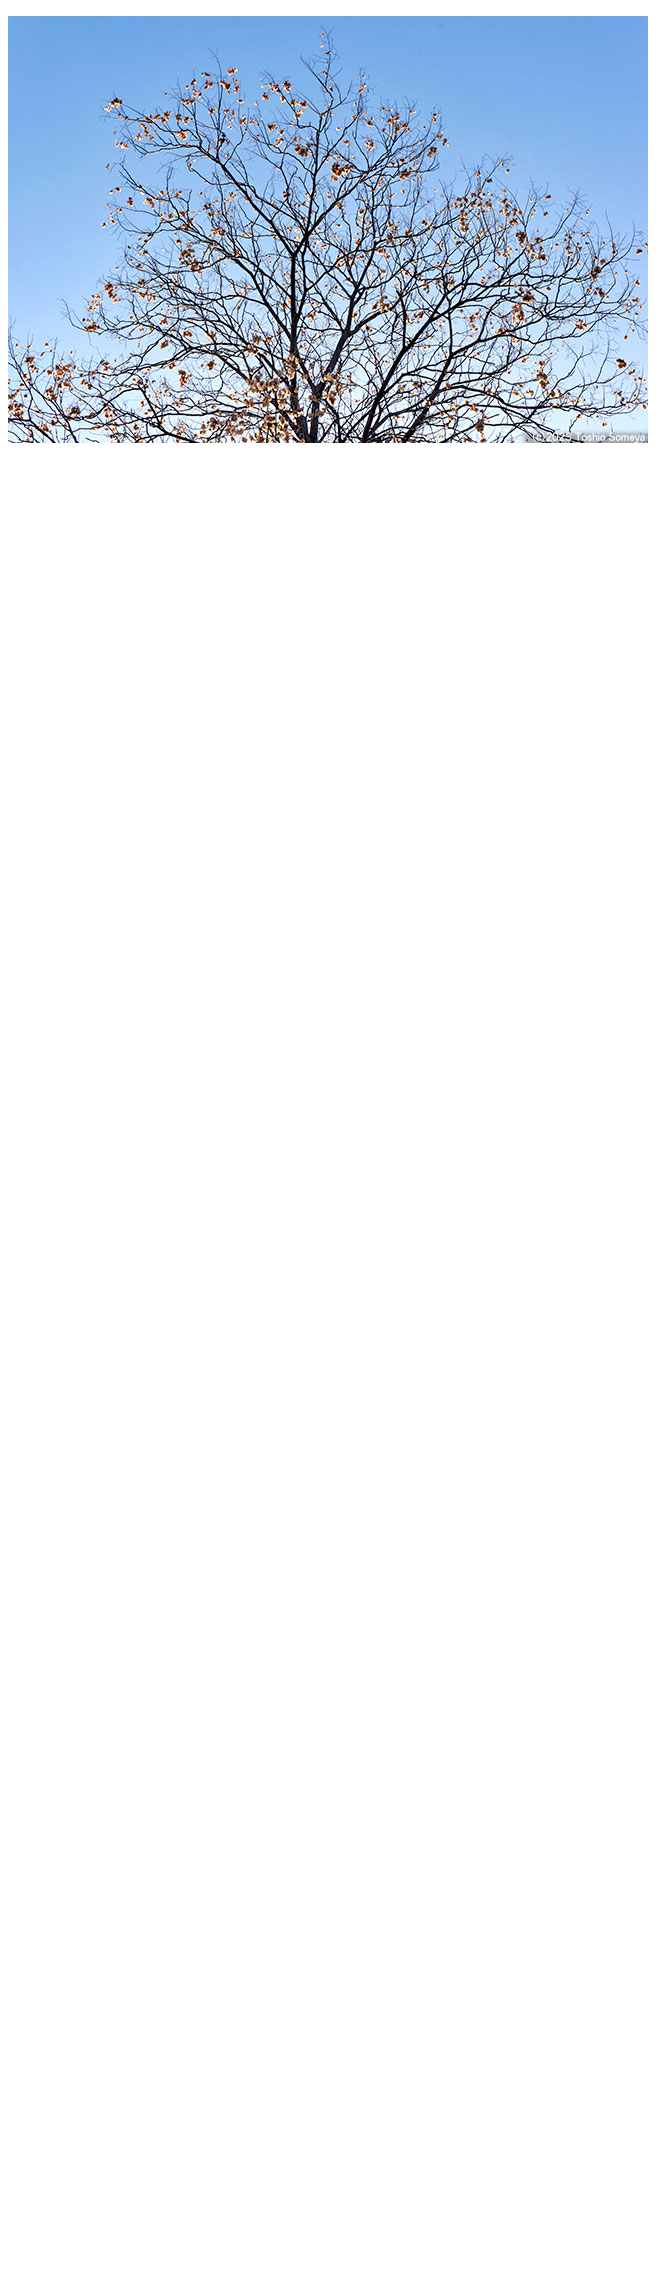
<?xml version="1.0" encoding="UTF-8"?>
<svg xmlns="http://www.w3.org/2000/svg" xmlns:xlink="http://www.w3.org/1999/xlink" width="661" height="2288">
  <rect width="100%" height="100%" fill="#ffffff" />
  <image x="8" y="16" width="640" height="427" xlink:href="image1.png" />
</svg>
